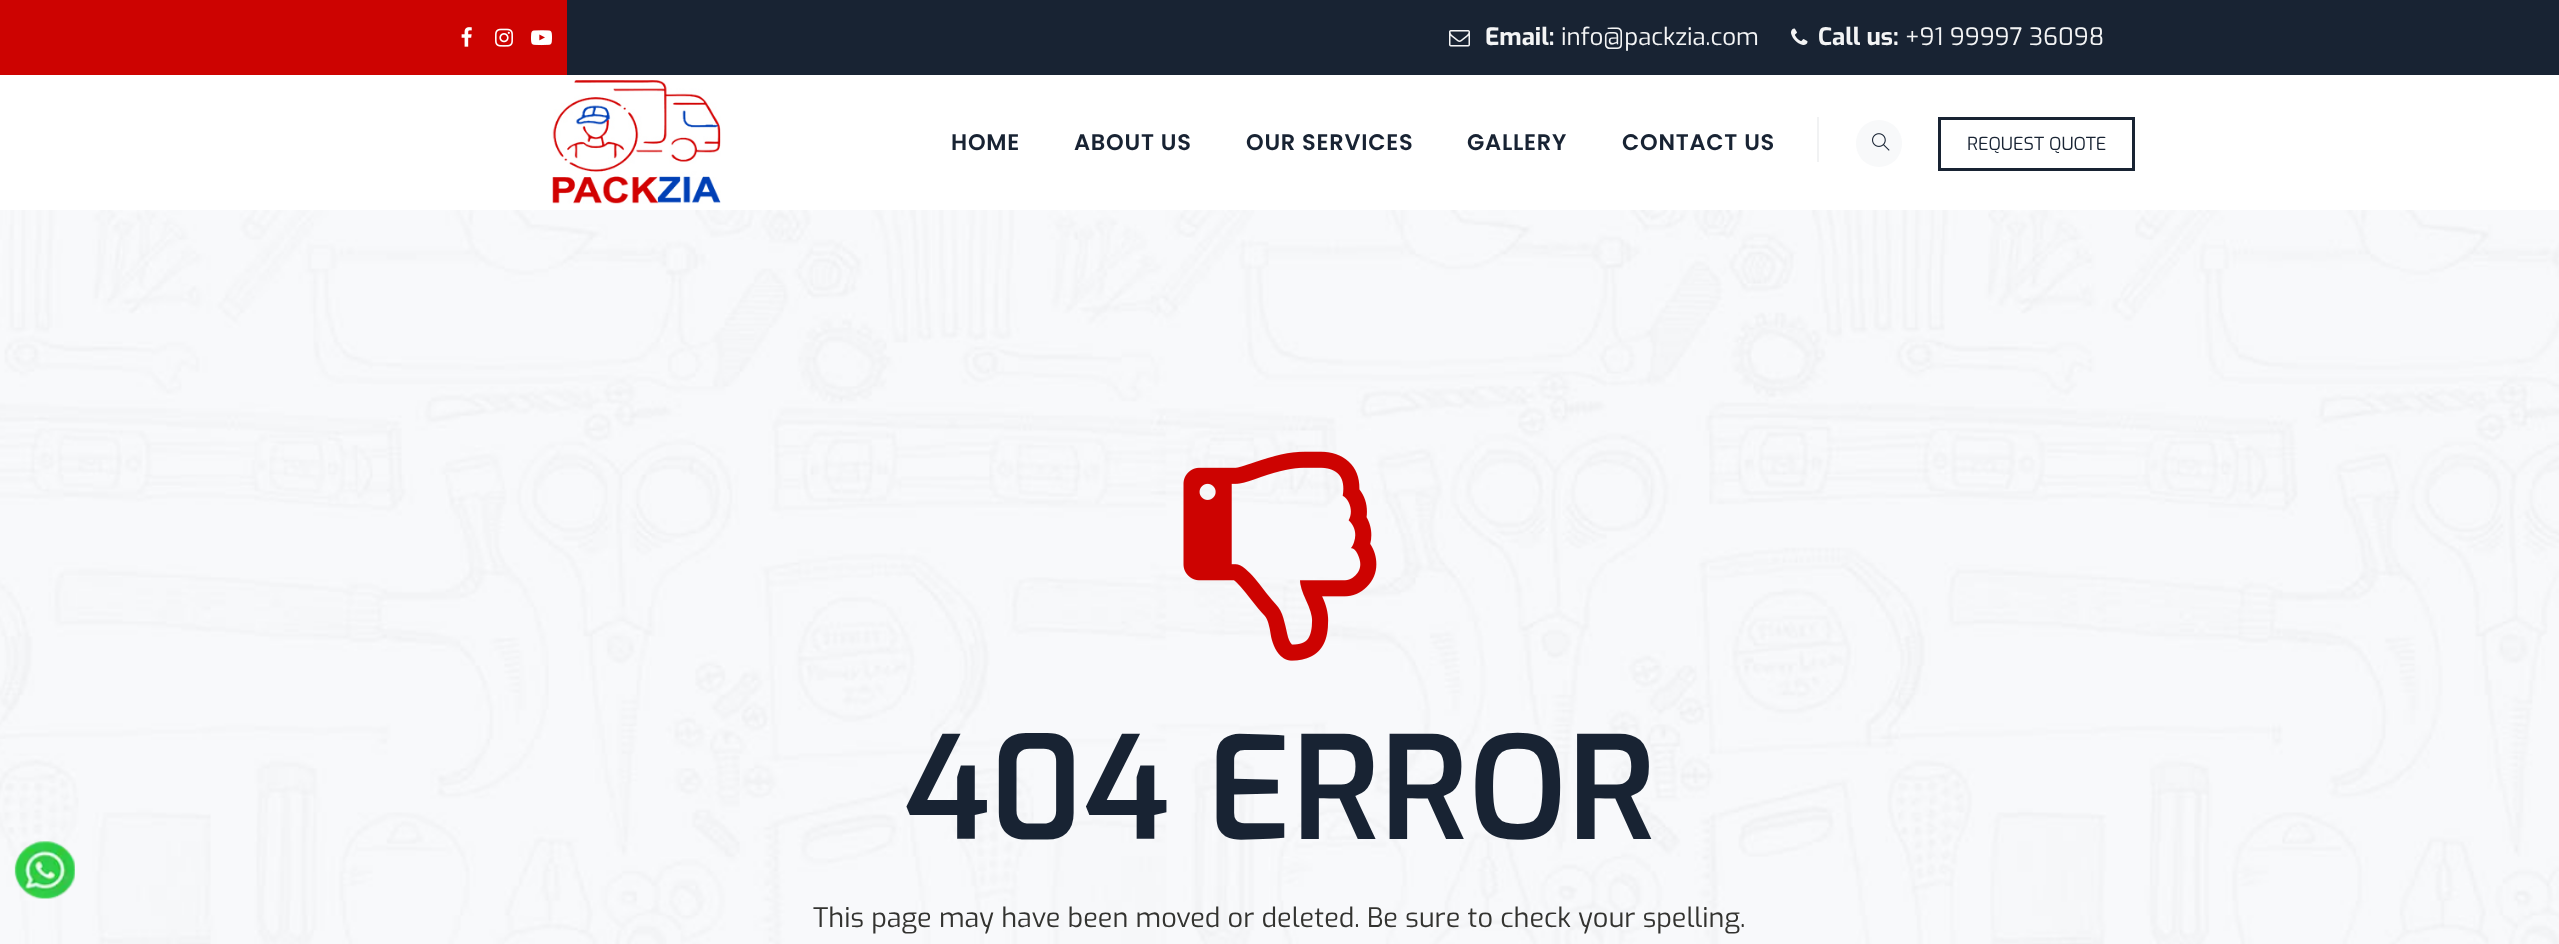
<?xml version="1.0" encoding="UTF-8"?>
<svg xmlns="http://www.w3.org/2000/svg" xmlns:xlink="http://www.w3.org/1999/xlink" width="2559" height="944">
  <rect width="100%" height="100%" fill="#ffffff" />
  <image x="0" y="210" width="2559" height="734" xlink:href="image9.png" />
  <image x="14" y="841" width="61" height="58" xlink:href="image1.png" />
  <rect x="567" width="1992" height="75" fill="#182333" />
  <rect width="567" height="75" fill="#cd0301" />
  <image x="461" y="27" width="11" height="20" xlink:href="image2.png" />
  <image x="495" y="28" width="18" height="19" xlink:href="image3.png" />
  <image x="531" y="30" width="21" height="16" xlink:href="image4.png" />
  <image x="1449" y="30" width="21" height="17" xlink:href="image5.png" />
  <image x="1791" y="28" width="17" height="17" xlink:href="image6.png" />
  <image x="552" y="80" width="169" height="124" xlink:href="image7.png" />
  <rect x="1817" y="117" width="2" height="45" fill="#f1f2f3" />
  <rect x="1856" y="120" width="46" height="47" rx="23" fill="#f8f9fa" />
  <image x="1872" y="133" width="18" height="18" xlink:href="image8.png" />
  <rect x="1939.5" y="118.5" width="194" height="51" fill="none" stroke="#182333" stroke-width="3" />
  <image x="1183" y="451" width="194" height="210" xlink:href="image10.png" />
  <text x="1485" y="45" style="font-family: Exo; font-size: 24px; font-weight: bold; fill: #f3f4f5">Email:</text>
  <text x="1561" y="45" style="font-family: Exo; font-size: 24px; fill: #f3f4f5">info@packzia.com</text>
  <text x="1818" y="45" style="font-family: Exo; font-size: 24px; font-weight: bold; fill: #f3f4f5">Call us:</text>
  <text x="1905" y="45" style="font-family: Exo; font-size: 24px; fill: #f3f4f5">+91 99997 36098</text>
  <text x="951" y="150" style="font-family: Poppins; font-size: 22.5px; font-weight: 600; letter-spacing: 0.75px; fill: #182333">HOME</text>
  <text x="1074" y="150" style="font-family: Poppins; font-size: 22.5px; font-weight: 600; letter-spacing: 0.75px; fill: #182333">ABOUT US</text>
  <text x="1246" y="150" style="font-family: Poppins; font-size: 22.5px; font-weight: 600; letter-spacing: 0.75px; fill: #182333">OUR SERVICES</text>
  <text x="1467" y="150" style="font-family: Poppins; font-size: 22.5px; font-weight: 600; letter-spacing: 0.75px; fill: #182333">GALLERY</text>
  <text x="1622" y="150" style="font-family: Poppins; font-size: 22.5px; font-weight: 600; letter-spacing: 0.75px; fill: #182333">CONTACT US</text>
  <text x="1967" y="150" style="font-family: Exo; font-size: 18px; fill: #182333">REQUEST QUOTE</text>
  <text x="903" y="839" style="font-family: Exo; font-size: 142.5px; font-weight: 600; fill: #182333">404 ERROR</text>
  <text x="813" y="927" style="font-family: Exo; font-size: 27px; fill: #333330">This page may have been moved or deleted. Be sure to check your spelling.</text>
</svg>
